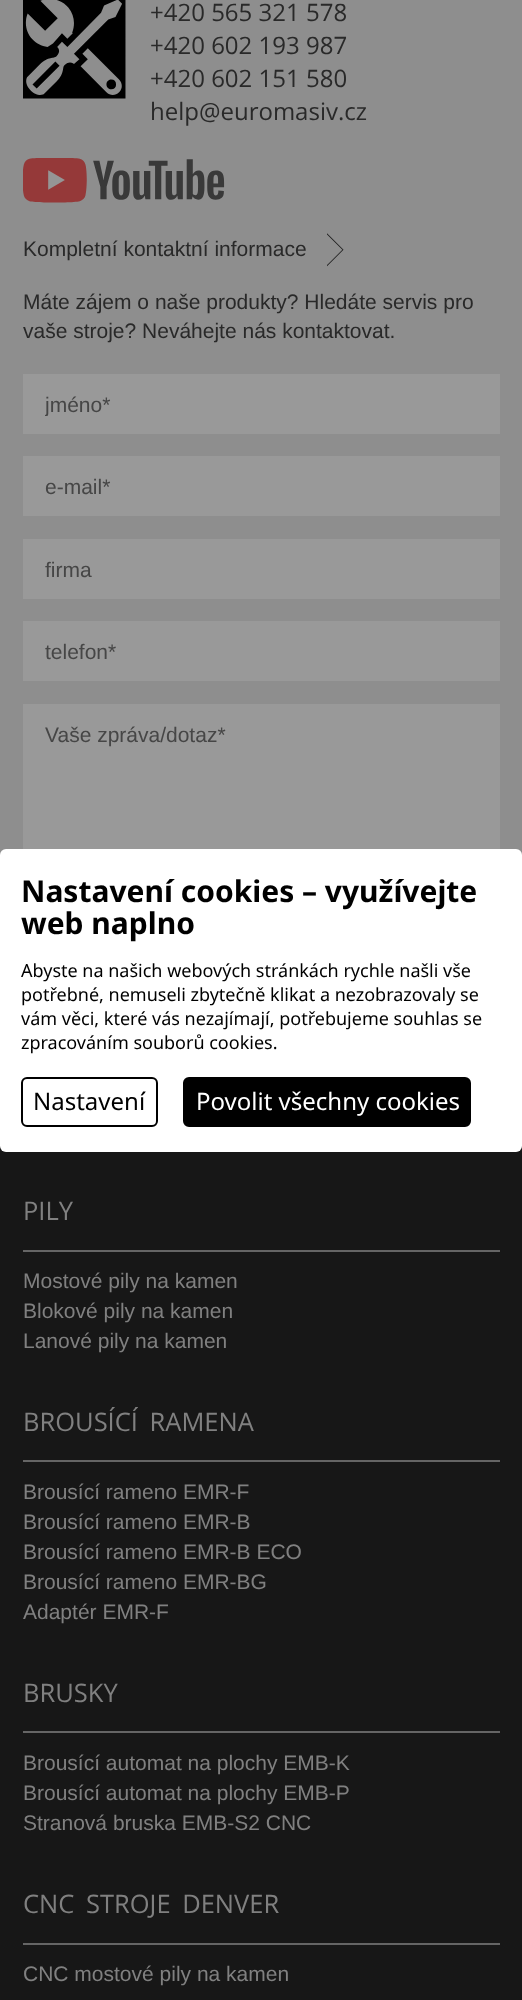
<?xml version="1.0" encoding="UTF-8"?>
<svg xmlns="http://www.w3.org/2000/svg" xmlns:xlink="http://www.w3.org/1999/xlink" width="522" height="2000">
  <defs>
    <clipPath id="clip1"><rect x="45" y="392" width="432" height="24" /></clipPath>
  </defs>
  <rect width="100%" height="100%" fill="#8e8e8e" />
  <image x="23" y="0" width="103" height="99" xlink:href="image1.png" />
  <image x="23" y="158" width="202" height="45" xlink:href="image2.png" />
  <image x="327" y="233" width="17" height="34" xlink:href="image3.png" />
  <rect x="23" y="374" width="477" height="60" fill="#999999" />
  <rect x="23" y="456" width="477" height="60" fill="#999999" />
  <rect x="23" y="539" width="477" height="60" fill="#999999" />
  <rect x="23" y="621" width="477" height="60" fill="#999999" />
  <rect x="23" y="704" width="477" height="145" fill="#999999" />
  <rect y="1146" width="522" height="854" fill="#171717" />
  <rect x="23" y="1250" width="477" height="2" fill="#656565" />
  <rect x="23" y="1460" width="477" height="2" fill="#656565" />
  <rect x="23" y="1731" width="477" height="2" fill="#656565" />
  <rect x="23" y="1943" width="477" height="2" fill="#656565" />
  <rect y="849" width="522" height="303" rx="6" fill="#ffffff" />
  <rect x="22" y="1078" width="135" height="48" rx="5" fill="none" stroke="#000000" stroke-width="2" />
  <rect x="184" y="1078" width="286" height="48" rx="5" fill="#000000" stroke="#000000" stroke-width="2" />
  <text x="150" y="21" style="font-family: Open Sans; font-size: 24px; fill: #292929">+420 565 321 578</text>
  <text x="150" y="54" style="font-family: Open Sans; font-size: 24px; fill: #292929">+420 602 193 987</text>
  <text x="150" y="87" style="font-family: Open Sans; font-size: 24px; fill: #292929">+420 602 151 580</text>
  <text x="150" y="120" style="font-family: Open Sans; font-size: 24px; fill: #292929">help@euromasiv.cz</text>
  <text x="23" y="256" style="font-family: Liberation Sans; font-size: 21px; fill: #292929">Kompletní kontaktní informace</text>
  <text x="23" y="309" style="font-family: Liberation Sans; font-size: 21px; fill: #292929">Máte zájem o naše produkty? Hledáte servis pro</text>
  <text x="23" y="338" style="font-family: Liberation Sans; font-size: 21px; fill: #292929">vaše stroje? Neváhejte nás kontaktovat.</text>
  <g clip-path="url(#clip1)">
    <text x="45" y="412" style="font-family: Liberation Sans; font-size: 21px; fill: #464646">jméno*</text>
  </g>
  <text x="45" y="494" style="font-family: Liberation Sans; font-size: 21px; fill: #464646">e-mail*</text>
  <text x="45" y="577" style="font-family: Liberation Sans; font-size: 21px; fill: #464646">firma</text>
  <text x="45" y="659" style="font-family: Liberation Sans; font-size: 21px; fill: #464646">telefon*</text>
  <text x="45" y="742" style="font-family: Liberation Sans; font-size: 21px; fill: #464646">Vaše zpráva/dotaz*</text>
  <text x="23" y="1220" style="font-family: Open Sans; font-size: 25.5px; fill: #808080">PILY</text>
  <text x="23" y="1288" style="font-family: Liberation Sans; font-size: 21px; fill: #808080">Mostové pily na kamen</text>
  <text x="23" y="1318" style="font-family: Liberation Sans; font-size: 21px; fill: #808080">Blokové pily na kamen</text>
  <text x="23" y="1348" style="font-family: Liberation Sans; font-size: 21px; fill: #808080">Lanové pily na kamen</text>
  <text x="23" y="1431" word-spacing="5" style="font-family: Open Sans; font-size: 25.5px; fill: #808080">BROUSÍCÍ RAMENA</text>
  <text x="23" y="1499" style="font-family: Liberation Sans; font-size: 21px; fill: #808080">Brousící rameno EMR-F</text>
  <text x="23" y="1529" style="font-family: Liberation Sans; font-size: 21px; fill: #808080">Brousící rameno EMR-B</text>
  <text x="23" y="1559" style="font-family: Liberation Sans; font-size: 21px; fill: #808080">Brousící rameno EMR-B ECO</text>
  <text x="23" y="1589" style="font-family: Liberation Sans; font-size: 21px; fill: #808080">Brousící rameno EMR-BG</text>
  <text x="23" y="1619" style="font-family: Liberation Sans; font-size: 21px; fill: #808080">Adaptér EMR-F</text>
  <text x="23" y="1702" style="font-family: Open Sans; font-size: 25.5px; fill: #808080">BRUSKY</text>
  <text x="23" y="1770" style="font-family: Liberation Sans; font-size: 21px; fill: #808080">Brousící automat na plochy EMB-K</text>
  <text x="23" y="1800" style="font-family: Liberation Sans; font-size: 21px; fill: #808080">Brousící automat na plochy EMB-P</text>
  <text x="23" y="1830" style="font-family: Liberation Sans; font-size: 21px; fill: #808080">Stranová bruska EMB-S2 CNC</text>
  <text x="23" y="1913" word-spacing="5" style="font-family: Open Sans; font-size: 25.5px; fill: #808080">CNC STROJE DENVER</text>
  <text x="23" y="1981" style="font-family: Liberation Sans; font-size: 21px; fill: #808080">CNC mostové pily na kamen</text>
  <text x="21" y="902" style="font-family: Noto Sans; font-size: 30px; font-weight: bold; fill: #000000">Nastavení cookies – využívejte</text>
  <text x="21" y="934" style="font-family: Noto Sans; font-size: 30px; font-weight: bold; fill: #000000">web naplno</text>
  <text x="21" y="977" style="font-family: Noto Sans; font-size: 18px; fill: #000000">Abyste na našich webových stránkách rychle našli vše</text>
  <text x="21" y="1001" style="font-family: Noto Sans; font-size: 18px; fill: #000000">potřebné, nemuseli zbytečně klikat a nezobrazovaly se</text>
  <text x="21" y="1025" style="font-family: Noto Sans; font-size: 18px; fill: #000000">vám věci, které vás nezajímají, potřebujeme souhlas se</text>
  <text x="21" y="1049" style="font-family: Noto Sans; font-size: 18px; fill: #000000">zpracováním souborů cookies.</text>
  <text x="33" y="1110" style="font-family: Noto Sans; font-size: 24px; fill: #000000">Nastavení</text>
  <text x="196" y="1110" style="font-family: Noto Sans; font-size: 24px; fill: #ffffff">Povolit všechny cookies</text>
</svg>
